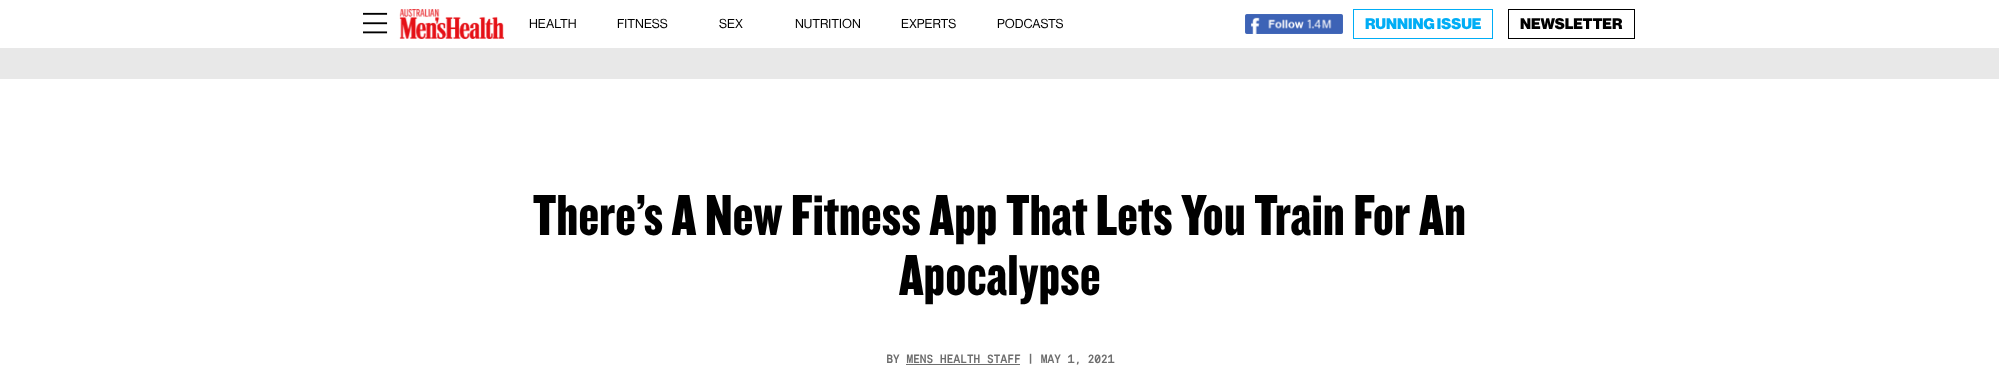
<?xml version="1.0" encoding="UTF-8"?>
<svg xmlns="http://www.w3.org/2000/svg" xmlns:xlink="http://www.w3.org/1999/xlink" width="1999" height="377">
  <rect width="100%" height="100%" fill="#ffffff" />
  <image x="363" y="12" width="25" height="22" xlink:href="image1.png" />
  <image x="399" y="9" width="105" height="30" xlink:href="image2.png" />
  <image x="1245" y="14" width="98" height="20" xlink:href="image3.png" />
  <rect x="1353.5" y="9.5" width="139" height="29" fill="none" stroke="#00adf5" />
  <rect x="1508.5" y="9.5" width="126" height="29" fill="none" stroke="#000000" />
  <rect y="48" width="1999" height="31" fill="#e8e8e8" />
  <rect x="906" y="364" width="114" height="1" fill="#6f6f6f" />
  <text x="529" y="28" style="font-family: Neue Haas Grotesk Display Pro; font-size: 12.75px; fill: #000000">HEALTH</text>
  <text x="617" y="28" style="font-family: Neue Haas Grotesk Display Pro; font-size: 12.75px; fill: #000000">FITNESS</text>
  <text x="719" y="28" style="font-family: Neue Haas Grotesk Display Pro; font-size: 12.75px; fill: #000000">SEX</text>
  <text x="795" y="28" style="font-family: Neue Haas Grotesk Display Pro; font-size: 12.75px; fill: #000000">NUTRITION</text>
  <text x="901" y="28" style="font-family: Neue Haas Grotesk Display Pro; font-size: 12.75px; fill: #000000">EXPERTS</text>
  <text x="997" y="28" style="font-family: Neue Haas Grotesk Display Pro; font-size: 12.75px; fill: #000000">PODCASTS</text>
  <text x="1365" y="29" style="font-family: Neue Haas Grotesk Display Pro; font-size: 15px; font-weight: 900; fill: #00adf5">RUNNING ISSUE</text>
  <text x="1520" y="29" style="font-family: Neue Haas Grotesk Display Pro; font-size: 15px; font-weight: 900; fill: #000000">NEWSLETTER</text>
  <text x="533" y="235" style="font-family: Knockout; font-size: 60px; fill: #000000">There’s A New Fitness App That Lets You Train For An</text>
  <text x="899" y="295" style="font-family: Knockout; font-size: 60px; fill: #000000">Apocalypse</text>
  <text x="886" y="363" style="font-family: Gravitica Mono; font-size: 11.6px; font-weight: bold; fill: #6f6f6f">BY MENS HEALTH STAFF | MAY 1, 2021</text>
</svg>
